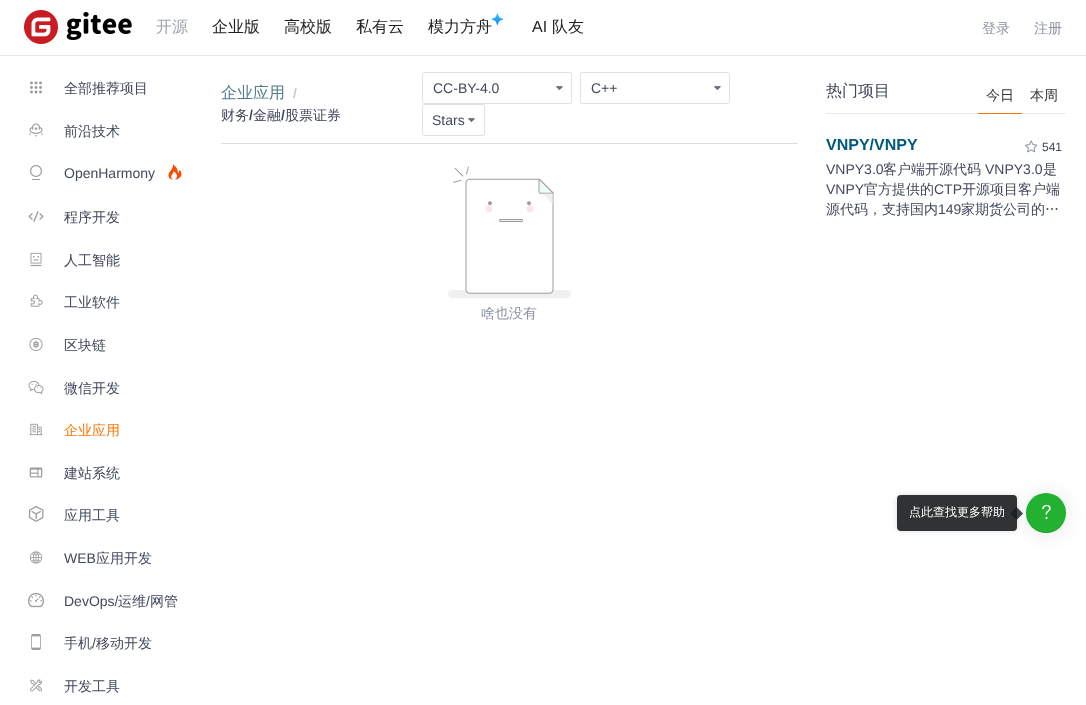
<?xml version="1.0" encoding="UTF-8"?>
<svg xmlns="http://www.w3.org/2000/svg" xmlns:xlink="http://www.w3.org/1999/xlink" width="1086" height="705">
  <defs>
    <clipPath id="clip1"><path d="M 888 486 h 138 v 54 h -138 z m 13 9 h 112 c 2 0 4 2 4 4 v 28 c 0 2 -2 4 -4 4 h -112 c -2 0 -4 -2 -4 -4 v -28 c 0 -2 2 -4 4 -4 z" clip-rule="evenodd" /></clipPath>
  </defs>
  <rect width="100%" height="100%" fill="#ffffff" />
  <rect y="55" width="1086" height="1" fill="#e3e9ed" />
  <image x="24" y="10" width="108" height="34" xlink:href="image1.png" />
  <image x="492" y="13" width="12" height="12" xlink:href="image2.png" />
  <image x="30" y="81" width="12" height="13" xlink:href="image3.png" />
  <image x="29" y="123" width="14" height="14" xlink:href="image4.png" />
  <image x="30" y="165" width="12" height="15" xlink:href="image5.png" />
  <image x="168" y="164" width="14" height="16" xlink:href="image6.png" />
  <image x="28" y="211" width="16" height="11" xlink:href="image7.png" />
  <image x="30" y="252" width="12" height="15" xlink:href="image8.png" />
  <image x="30" y="294" width="13" height="13" xlink:href="image9.png" />
  <image x="29" y="337" width="14" height="14" xlink:href="image10.png" />
  <image x="28" y="380" width="16" height="14" xlink:href="image11.png" />
  <image x="29" y="423" width="14" height="13" xlink:href="image12.png" />
  <image x="29" y="467" width="14" height="11" xlink:href="image13.png" />
  <image x="28" y="506" width="16" height="16" xlink:href="image14.png" />
  <image x="29" y="551" width="14" height="13" xlink:href="image15.png" />
  <image x="28" y="592" width="16" height="16" xlink:href="image16.png" />
  <image x="31" y="634" width="10" height="16" xlink:href="image17.png" />
  <image x="30" y="679" width="12" height="13" xlink:href="image18.png" />
  <rect x="422.5" y="72.5" width="149" height="31" rx="1.5" fill="none" stroke="#dce3e8" />
  <image x="556" y="86" width="7" height="4" xlink:href="image19.png" />
  <rect x="580.5" y="72.5" width="149" height="31" rx="1.5" fill="none" stroke="#dce3e8" />
  <image x="714" y="86" width="7" height="4" xlink:href="image19.png" />
  <rect x="422.5" y="104.5" width="62" height="31" rx="1.5" fill="none" stroke="#dce3e8" />
  <image x="468" y="118" width="7" height="4" xlink:href="image19.png" />
  <rect x="221" y="143" width="577" height="1" fill="#dedede" />
  <image x="448" y="166" width="123" height="132" xlink:href="image20.png" />
  <rect x="826" y="113" width="152" height="1" fill="#e3e9ed" />
  <rect x="978" y="113" width="44" height="1" fill="#fe7300" />
  <rect x="1022" y="113" width="44" height="1" fill="#e3e9ed" />
  <image x="1025" y="140" width="13" height="13" xlink:href="image21.png" />
  <rect x="1026" y="494" width="40" height="40" rx="20" fill="#000000" fill-opacity="0.1" filter="blur(10px)" />
  <circle cx="1046" cy="513" r="20" fill="#22b130" />
  <path d="M 1027 506 c -9 23 27 39 37 15 c 2 -5 3 -11 1 -15 c 3 11 -3 26 -19 26 c -16 0 -22 -15 -19 -26 z" fill="#000000" fill-opacity="0.1" />
  <g clip-path="url(#clip1)">
    <rect x="898" y="496" width="118" height="34" rx="3" fill="#8c92a3" fill-opacity="0.45" filter="blur(3px)" />
  </g>
  <rect x="897" y="495" width="120" height="36" rx="4" fill="#1b1c1d" fill-opacity="0.9" />
  <path d="M 1018 507 l -1 1 l 6 5.5 l -6 5.5 l 1 1 l 6 -6.5 z" fill="#b3b3b3" fill-opacity="0.16" />
  <path d="M 1016.5 507 l 6.5 6.5 l -6.5 6.5 l -6.5 -6.5 z" fill="#1b1c1d" fill-opacity="0.81" />
  <image x="1042" y="504" width="9" height="16" xlink:href="image22.png" />
  <text x="156" y="32" style="font-family: WenQuanYi Zen Hei; font-size: 16px; font-weight: 500; fill: #9ca3af">开源</text>
  <text x="212" y="32" style="font-family: WenQuanYi Zen Hei; font-size: 16px; font-weight: 500; fill: #1f1f1f">企业版</text>
  <text x="284" y="32" style="font-family: WenQuanYi Zen Hei; font-size: 16px; font-weight: 500; fill: #1f1f1f">高校版</text>
  <text x="356" y="32" style="font-family: WenQuanYi Zen Hei; font-size: 16px; font-weight: 500; fill: #1f1f1f">私有云</text>
  <text x="428" y="32" style="font-family: WenQuanYi Zen Hei; font-size: 16px; font-weight: 500; fill: #1f1f1f">模力方舟</text>
  <text x="532" y="32" style="font-family: Liberation Sans; font-size: 16px; fill: #1f1f1f">AI</text>
  <text x="552" y="32" style="font-family: WenQuanYi Zen Hei; font-size: 16px; font-weight: 500; fill: #1f1f1f">队友</text>
  <text x="982" y="33" style="font-family: WenQuanYi Zen Hei; font-size: 14px; font-weight: 500; fill: #8c92a4">登录</text>
  <text x="1034" y="33" style="font-family: WenQuanYi Zen Hei; font-size: 14px; font-weight: 500; fill: #8c92a4">注册</text>
  <text x="64" y="93" style="font-family: WenQuanYi Zen Hei; font-size: 14px; font-weight: 500; fill: #40485b">全部推荐项目</text>
  <text x="64" y="136" style="font-family: WenQuanYi Zen Hei; font-size: 14px; font-weight: 500; fill: #40485b">前沿技术</text>
  <text x="64" y="178" style="font-family: Liberation Sans; font-size: 14px; fill: #40485b">OpenHarmony</text>
  <text x="64" y="222" style="font-family: WenQuanYi Zen Hei; font-size: 14px; font-weight: 500; fill: #40485b">程序开发</text>
  <text x="64" y="265" style="font-family: WenQuanYi Zen Hei; font-size: 14px; font-weight: 500; fill: #40485b">人工智能</text>
  <text x="64" y="307" style="font-family: WenQuanYi Zen Hei; font-size: 14px; font-weight: 500; fill: #40485b">工业软件</text>
  <text x="64" y="350" style="font-family: WenQuanYi Zen Hei; font-size: 14px; font-weight: 500; fill: #40485b">区块链</text>
  <text x="64" y="393" style="font-family: WenQuanYi Zen Hei; font-size: 14px; font-weight: 500; fill: #40485b">微信开发</text>
  <text x="64" y="435" style="font-family: WenQuanYi Zen Hei; font-size: 14px; font-weight: 500; fill: #fe7300">企业应用</text>
  <text x="64" y="478" style="font-family: WenQuanYi Zen Hei; font-size: 14px; font-weight: 500; fill: #40485b">建站系统</text>
  <text x="64" y="520" style="font-family: WenQuanYi Zen Hei; font-size: 14px; font-weight: 500; fill: #40485b">应用工具</text>
  <text x="64" y="563" style="font-family: Liberation Sans; font-size: 14px; fill: #40485b">WEB</text>
  <text x="96" y="563" style="font-family: WenQuanYi Zen Hei; font-size: 14px; font-weight: 500; fill: #40485b">应用开发</text>
  <text x="64" y="606" style="font-family: Liberation Sans; font-size: 14px; fill: #40485b">DevOps/</text>
  <text x="118" y="606" style="font-family: WenQuanYi Zen Hei; font-size: 14px; font-weight: 500; fill: #40485b">运维</text>
  <text x="146" y="606" style="font-family: Liberation Sans; font-size: 14px; fill: #40485b">/</text>
  <text x="150" y="606" style="font-family: WenQuanYi Zen Hei; font-size: 14px; font-weight: 500; fill: #40485b">网管</text>
  <text x="64" y="648" style="font-family: WenQuanYi Zen Hei; font-size: 14px; font-weight: 500; fill: #40485b">手机</text>
  <text x="92" y="648" style="font-family: Liberation Sans; font-size: 14px; fill: #40485b">/</text>
  <text x="96" y="648" style="font-family: WenQuanYi Zen Hei; font-size: 14px; font-weight: 500; fill: #40485b">移动开发</text>
  <text x="64" y="691" style="font-family: WenQuanYi Zen Hei; font-size: 14px; font-weight: 500; fill: #40485b">开发工具</text>
  <text x="221" y="98" style="font-family: WenQuanYi Zen Hei; font-size: 16px; font-weight: 500; fill: #537c8d">企业应用</text>
  <text x="293" y="98" style="font-family: Liberation Sans; font-size: 14px; font-weight: bold; fill: #cccccc">/</text>
  <text x="221" y="120" style="font-family: WenQuanYi Zen Hei; font-size: 14px; font-weight: 500; fill: #40485b">财务</text>
  <text x="249" y="120" style="font-family: Liberation Sans; font-size: 14px; font-weight: bold; fill: #40485b">/</text>
  <text x="253" y="120" style="font-family: WenQuanYi Zen Hei; font-size: 14px; font-weight: 500; fill: #40485b">金融</text>
  <text x="281" y="120" style="font-family: Liberation Sans; font-size: 14px; font-weight: bold; fill: #40485b">/</text>
  <text x="285" y="120" style="font-family: WenQuanYi Zen Hei; font-size: 14px; font-weight: 500; fill: #40485b">股票证券</text>
  <text x="433" y="93" style="font-family: Liberation Sans; font-size: 14px; fill: #40485b">CC-BY-4.0</text>
  <text x="591" y="93" style="font-family: Liberation Sans; font-size: 14px; fill: #40485b">C++</text>
  <text x="432" y="125" style="font-family: Liberation Sans; font-size: 14px; fill: #40485b">Stars</text>
  <text x="481" y="318" style="font-family: WenQuanYi Zen Hei; font-size: 14px; font-weight: 500; fill: #8c92a4">啥也没有</text>
  <text x="826" y="96" style="font-family: WenQuanYi Zen Hei; font-size: 16px; font-weight: 500; fill: #40485b">热门项目</text>
  <text x="986" y="100" style="font-family: WenQuanYi Zen Hei; font-size: 14px; font-weight: 500; fill: #333333">今日</text>
  <text x="1030" y="100" style="font-family: WenQuanYi Zen Hei; font-size: 14px; font-weight: 500; fill: #333333">本周</text>
  <text x="826" y="150" style="font-family: Liberation Sans; font-size: 16px; font-weight: bold; fill: #005980">VNPY/VNPY</text>
  <text x="1042" y="151" style="font-family: Liberation Sans; font-size: 12px; fill: #40485b">541</text>
  <text x="826" y="174" style="font-family: Liberation Sans; font-size: 14px; fill: #40485b">VNPY3.0</text>
  <text x="883" y="174" style="font-family: WenQuanYi Zen Hei; font-size: 14px; font-weight: 500; fill: #40485b">客户端开源代码</text>
  <text x="985" y="174" style="font-family: Liberation Sans; font-size: 14px; fill: #40485b">VNPY3.0</text>
  <text x="1043" y="174" style="font-family: WenQuanYi Zen Hei; font-size: 14px; font-weight: 500; fill: #40485b">是</text>
  <text x="826" y="194" style="font-family: Liberation Sans; font-size: 14px; fill: #40485b">VNPY</text>
  <text x="864" y="194" style="font-family: WenQuanYi Zen Hei; font-size: 14px; font-weight: 500; fill: #40485b">官方提供的</text>
  <text x="934" y="194" style="font-family: Liberation Sans; font-size: 14px; fill: #40485b">CTP</text>
  <text x="962" y="194" style="font-family: WenQuanYi Zen Hei; font-size: 14px; font-weight: 500; fill: #40485b">开源项目客户端</text>
  <text x="826" y="214" style="font-family: WenQuanYi Zen Hei; font-size: 14px; font-weight: 500; fill: #40485b">源代码，支持国内</text>
  <text x="938" y="214" style="font-family: Liberation Sans; font-size: 14px; fill: #40485b">149</text>
  <text x="961" y="214" style="font-family: WenQuanYi Zen Hei; font-size: 14px; font-weight: 500; fill: #40485b">家期货公司的…</text>
  <text x="909" y="516" style="font-family: WenQuanYi Zen Hei; font-size: 12px; font-weight: 500; fill: #ffffff">点此查找更多帮助</text>
</svg>
